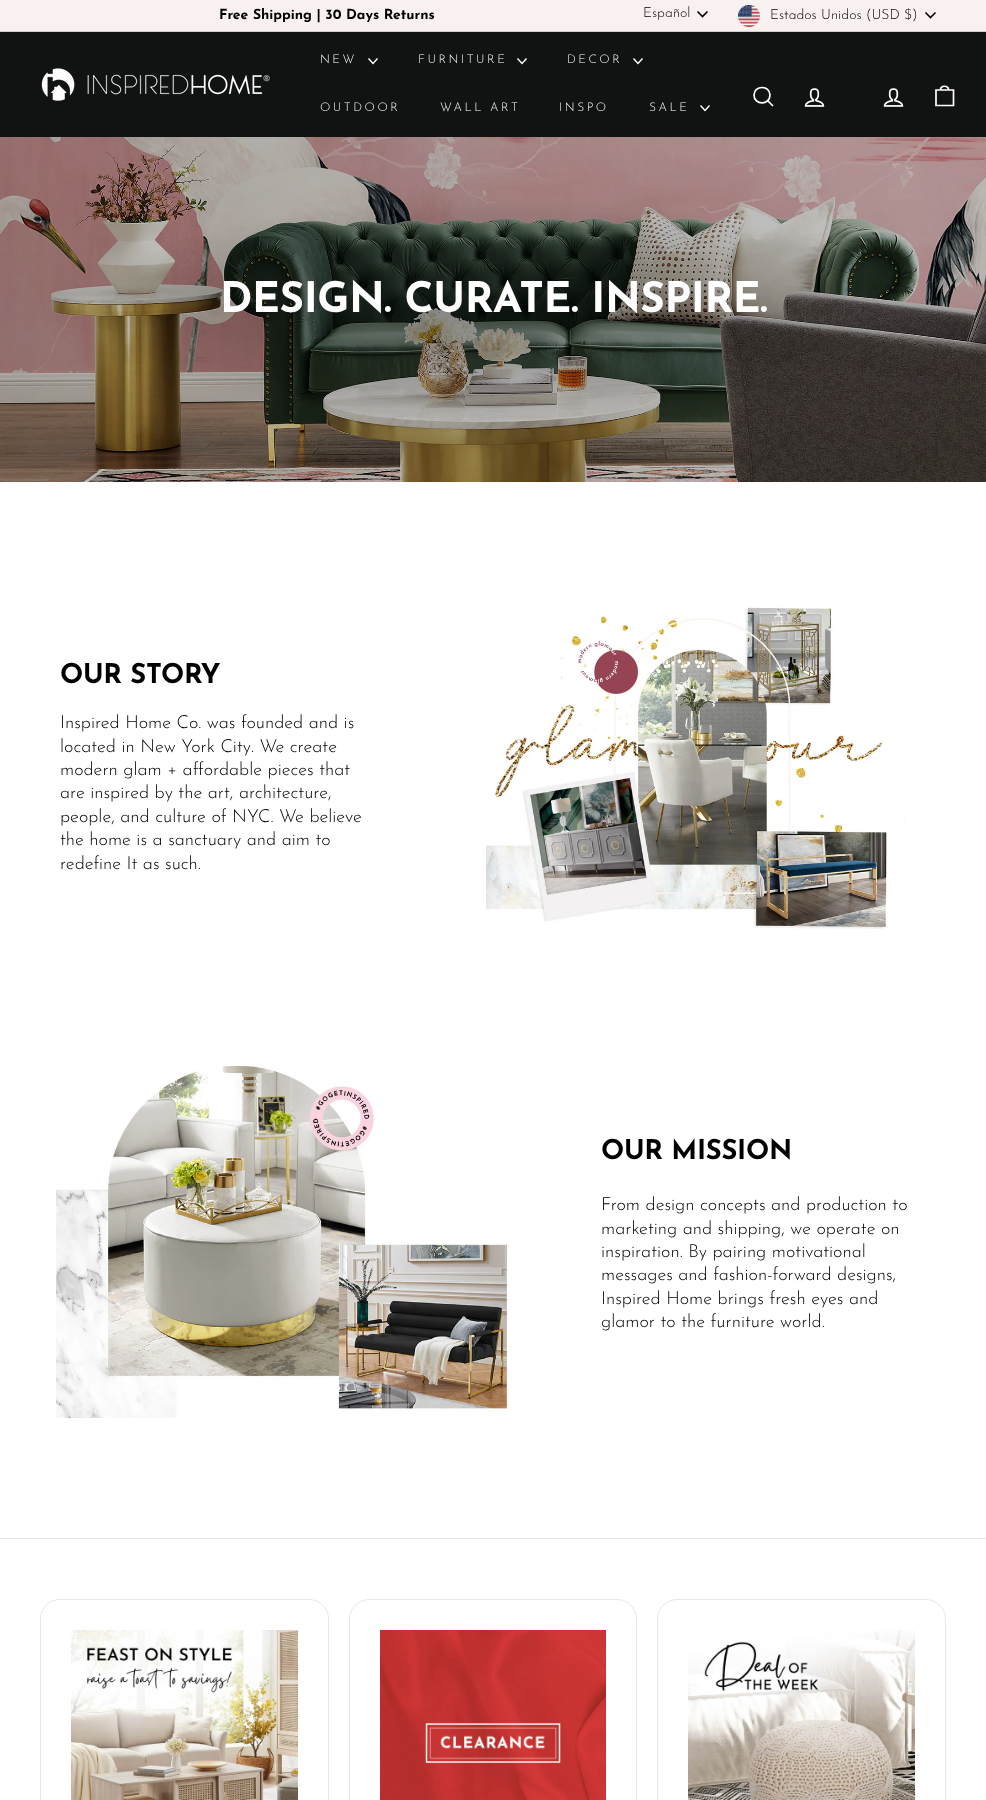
<?xml version="1.0" encoding="UTF-8"?>
<svg xmlns="http://www.w3.org/2000/svg" xmlns:xlink="http://www.w3.org/1999/xlink" width="986" height="1800">
  <rect width="100%" height="100%" fill="#ffffff" />
  <rect width="986" height="31" fill="#f8f1ef" />
  <path d="M 697.5 11.5 l 5 5 l 5 -5" fill="none" stroke="#000000" stroke-width="1.6" />
  <image x="738" y="5" width="22" height="22" xlink:href="image1.png" />
  <path d="M 925.5 12.5 l 5 5 l 5 -5" fill="none" stroke="#000000" stroke-width="1.6" />
  <rect y="31" width="986" height="1" fill="#d3cdcb" />
  <rect y="32" width="986" height="105" fill="#111212" />
  <image x="41" y="68" width="229" height="33" xlink:href="image2.png" />
  <path d="M 368.5 58.5 l 4.5 5 l 4.5 -5" fill="none" stroke="#ffffff" stroke-width="1.4" />
  <path d="M 517.5 58.5 l 4.5 5 l 4.5 -5" fill="none" stroke="#ffffff" stroke-width="1.4" />
  <path d="M 633.5 58.5 l 4.5 5 l 4.5 -5" fill="none" stroke="#ffffff" stroke-width="1.4" />
  <path d="M 700.5 105.5 l 4.5 5 l 4.5 -5" fill="none" stroke="#ffffff" stroke-width="1.4" />
  <path d="M 770 95 c 0 10.5 -16 10.5 -16 0 c 0 -10 16 -10 16 0 m 3 11 l -5.5 -5.5" fill="none" stroke="#ffffff" stroke-width="1.7" />
  <image x="804" y="88" width="21" height="19" xlink:href="image3.png" />
  <image x="883" y="88" width="21" height="19" xlink:href="image3.png" />
  <path d="M 940.5 90 c 0 -5 8 -5 8 0 m -12.5 0 h 17.5 v 15.5 h -17.5 z" fill="none" stroke="#ffffff" stroke-width="1.7" />
  <image x="0" y="137" width="986" height="345" xlink:href="image4.png" />
  <image x="486" y="606" width="419" height="323" xlink:href="image5.png" />
  <image x="56" y="1065" width="453" height="353" xlink:href="image6.png" />
  <rect y="1538" width="986" height="1" fill="#e8e8e1" />
  <rect x="40.5" y="1599.5" width="288" height="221" rx="19.5" fill="none" stroke="#e8e8e1" />
  <image x="71" y="1630" width="227" height="170" xlink:href="image7.png" />
  <rect x="349.5" y="1599.5" width="287" height="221" rx="19.5" fill="none" stroke="#e8e8e1" />
  <image x="380" y="1630" width="226" height="170" xlink:href="image8.png" />
  <rect x="657.5" y="1599.5" width="288" height="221" rx="19.5" fill="none" stroke="#e8e8e1" />
  <image x="688" y="1630" width="227" height="170" xlink:href="image9.png" />
  <text x="219" y="19" style="font-family: Josefin Sans; font-size: 14px; font-weight: bold; fill: #000000">Free Shipping | 30 Days Returns</text>
  <text x="643" y="17" style="font-family: Josefin Sans; font-size: 14px; font-weight: 300; fill: #000000">Español</text>
  <text x="770" y="19" style="font-family: Josefin Sans; font-size: 14px; font-weight: 300; fill: #000000">Estados Unidos (USD $)</text>
  <text x="320" y="63" style="font-family: Josefin Sans; font-size: 12px; font-weight: 300; letter-spacing: 2.5px; fill: #ffffff">NEW</text>
  <text x="418" y="63" style="font-family: Josefin Sans; font-size: 12px; font-weight: 300; letter-spacing: 2.5px; fill: #ffffff">FURNITURE</text>
  <text x="567" y="63" style="font-family: Josefin Sans; font-size: 12px; font-weight: 300; letter-spacing: 2.5px; fill: #ffffff">DECOR</text>
  <text x="320" y="111" style="font-family: Josefin Sans; font-size: 12px; font-weight: 300; letter-spacing: 2.5px; fill: #ffffff">OUTDOOR</text>
  <text x="440" y="111" style="font-family: Josefin Sans; font-size: 12px; font-weight: 300; letter-spacing: 2.5px; fill: #ffffff">WALL ART</text>
  <text x="559" y="111" style="font-family: Josefin Sans; font-size: 12px; font-weight: 300; letter-spacing: 2.5px; fill: #ffffff">INSPO</text>
  <text x="649" y="111" style="font-family: Josefin Sans; font-size: 12px; font-weight: 300; letter-spacing: 2.5px; fill: #ffffff">SALE</text>
  <text x="220" y="312" style="font-family: Josefin Sans; font-size: 42px; font-weight: bold; letter-spacing: -0.4px; fill: #ffffff">DESIGN. CURATE. INSPIRE.</text>
  <text x="60" y="683" style="font-family: Josefin Sans; font-size: 27.25px; font-weight: bold; letter-spacing: -0.25px; fill: #000000">OUR STORY</text>
  <text x="60" y="728" style="font-family: Josefin Sans; font-size: 18px; font-weight: 300; fill: #000000">Inspired Home Co. was founded and is</text>
  <text x="60" y="752" style="font-family: Josefin Sans; font-size: 18px; font-weight: 300; fill: #000000">located in New York City. We create</text>
  <text x="60" y="775" style="font-family: Josefin Sans; font-size: 18px; font-weight: 300; fill: #000000">modern glam + affordable pieces that</text>
  <text x="60" y="798" style="font-family: Josefin Sans; font-size: 18px; font-weight: 300; fill: #000000">are inspired by the art, architecture,</text>
  <text x="60" y="822" style="font-family: Josefin Sans; font-size: 18px; font-weight: 300; fill: #000000">people, and culture of NYC. We believe</text>
  <text x="60" y="845" style="font-family: Josefin Sans; font-size: 18px; font-weight: 300; fill: #000000">the home is a sanctuary and aim to</text>
  <text x="60" y="869" style="font-family: Josefin Sans; font-size: 18px; font-weight: 300; fill: #000000">redefine It as such.</text>
  <text x="601" y="1159" style="font-family: Josefin Sans; font-size: 27.25px; font-weight: bold; letter-spacing: -0.25px; fill: #000000">OUR MISSION</text>
  <text x="601" y="1210" style="font-family: Josefin Sans; font-size: 18px; font-weight: 300; fill: #000000">From design concepts and production to</text>
  <text x="601" y="1234" style="font-family: Josefin Sans; font-size: 18px; font-weight: 300; fill: #000000">marketing and shipping, we operate on</text>
  <text x="601" y="1257" style="font-family: Josefin Sans; font-size: 18px; font-weight: 300; fill: #000000">inspiration. By pairing motivational</text>
  <text x="601" y="1280" style="font-family: Josefin Sans; font-size: 18px; font-weight: 300; fill: #000000">messages and fashion-forward designs,</text>
  <text x="601" y="1304" style="font-family: Josefin Sans; font-size: 18px; font-weight: 300; fill: #000000">Inspired Home brings fresh eyes and</text>
  <text x="601" y="1327" style="font-family: Josefin Sans; font-size: 18px; font-weight: 300; fill: #000000">glamor to the furniture world.</text>
</svg>
